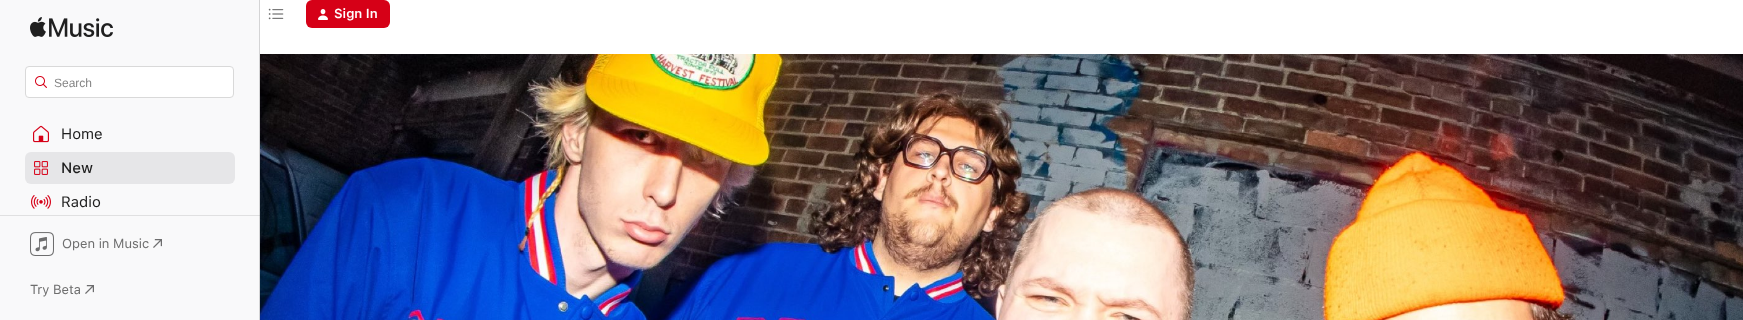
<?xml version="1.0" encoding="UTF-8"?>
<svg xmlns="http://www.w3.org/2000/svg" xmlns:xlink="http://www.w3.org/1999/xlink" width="1743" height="320">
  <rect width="100%" height="100%" fill="#ffffff" />
  <image x="268" y="8" width="16" height="12" xlink:href="image1.png" />
  <rect x="306" width="84" height="28" rx="6" fill="#d60017" />
  <image x="318" y="9" width="10" height="11" xlink:href="image2.png" />
  <rect width="259" height="320" fill="#f9f9fa" />
  <rect y="215" width="260" height="1" fill="#e0e0e1" />
  <rect x="259" width="1" height="320" fill="#d4d4d5" />
  <rect x="259" y="215" width="1" height="1" fill="#bfbfc0" />
  <image x="30" y="17" width="83" height="20" xlink:href="image3.png" />
  <rect x="25.5" y="66.5" width="208" height="31" rx="3.5" fill="#ffffff" stroke="#d9d9d9" />
  <image x="35" y="76" width="12" height="12" xlink:href="image4.png" />
  <image x="33" y="125" width="16" height="18" xlink:href="image5.png" />
  <rect x="25" y="152" width="210" height="32" rx="6" fill="#e6e6e8" />
  <image x="34" y="161" width="14" height="14" xlink:href="image6.png" />
  <image x="31" y="195" width="20" height="14" xlink:href="image7.png" />
  <image x="30" y="232" width="24" height="24" xlink:href="image8.png" />
  <image x="153" y="239" width="9" height="9" xlink:href="image9.png" />
  <image x="85" y="285" width="9" height="9" xlink:href="image9.png" />
  <image x="260" y="54" width="1483" height="266" xlink:href="image10.png" />
  <text x="334" y="18" style="font-family: SF; font-size: 13px; font-weight: 600; fill: #ffffff">Sign In</text>
  <text x="54" y="87" style="font-family: Liberation Sans; font-size: 12px; fill: #858585">Search</text>
  <text x="61" y="139" style="font-family: SF; font-size: 15px; fill: #1e1e1e">Home</text>
  <text x="61" y="173" style="font-family: SF; font-size: 15px; font-weight: 500; fill: #1e1e1e">New</text>
  <text x="61" y="207" style="font-family: SF; font-size: 15px; fill: #1e1e1e">Radio</text>
  <text x="62" y="248" style="font-family: SF; font-size: 13px; fill: #6e6e6e">Open in Music</text>
  <text x="30" y="294" style="font-family: SF; font-size: 13px; fill: #6e6e6e">Try Beta</text>
</svg>
